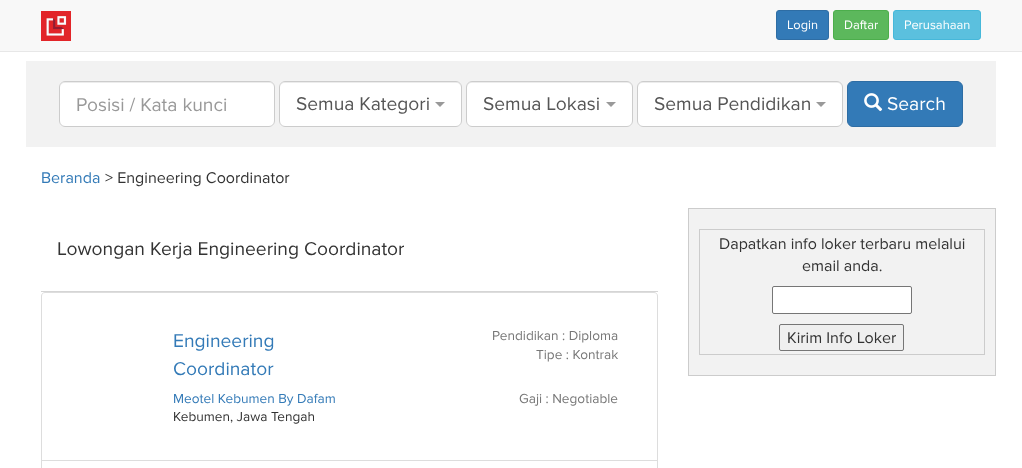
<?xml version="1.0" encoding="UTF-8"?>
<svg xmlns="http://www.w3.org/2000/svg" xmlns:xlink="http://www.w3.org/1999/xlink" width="1022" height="468">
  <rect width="100%" height="100%" fill="#ffffff" />
  <rect width="1022" height="51" fill="#f8f8f8" />
  <rect y="51" width="1022" height="1" fill="#e7e7e7" />
  <image x="41" y="11" width="30" height="30" xlink:href="image1.png" />
  <rect x="776.5" y="10.5" width="52" height="29" rx="2.5" fill="#337ab7" stroke="#2e6da4" />
  <rect x="833.5" y="10.5" width="55" height="29" rx="2.5" fill="#5cb85c" stroke="#4cae4c" />
  <rect x="893.5" y="10.5" width="87" height="29" rx="2.5" fill="#5bc0de" stroke="#46b8da" />
  <rect x="26" y="61" width="970" height="86" fill="#f2f2f2" />
  <rect x="59" y="81" width="216" height="46" rx="6" fill="#ffffff" />
  <path d="M 65 83 h 204 c 3 0 5 2 5 5 c 0 -3 -2 -6 -5 -6 h -205 c -3 1 -4 3 -4 6 c 0 -3 2 -5 5 -5 z" fill="#ececec" />
  <rect x="59.5" y="81.5" width="215" height="45" rx="5.5" fill="none" stroke="#cccccc" />
  <rect x="279" y="81" width="183" height="46" rx="6" fill="#ffffff" />
  <path d="M 285 83 h 171 c 3 0 5 2 5 5 c 0 -3 -1 -5 -4 -6 h -172 c -3 0 -5 3 -5 6 c 0 -3 2 -5 5 -5 z" fill="#ececec" />
  <rect x="279.5" y="81.5" width="182" height="45" rx="5.5" fill="none" stroke="#cccccc" />
  <path d="M 435 102 h 10 l -5 5 z" fill="#999999" />
  <rect x="466" y="81" width="167" height="46" rx="6" fill="#ffffff" />
  <path d="M 472 83 h 155 c 3 0 5 2 5 5 v -1 c 0 -3 -2 -5 -5 -5 h -155 c -3 0 -5 2 -5 5 v 1 c 0 -3 2 -5 5 -5 z" fill="#ececec" />
  <rect x="466.5" y="81.5" width="166" height="45" rx="5.5" fill="none" stroke="#cccccc" />
  <path d="M 606 102 h 10 l -5 5 z" fill="#999999" />
  <rect x="637" y="81" width="206" height="46" rx="6" fill="#ffffff" />
  <path d="M 643 83 h 194 c 3 0 5 2 5 5 v -1 c 0 -3 -2 -5 -5 -5 h -194 c -3 0 -5 2 -5 5 v 1 c 0 -3 2 -5 5 -5 z" fill="#ececec" />
  <rect x="637.5" y="81.5" width="205" height="45" rx="5.5" fill="none" stroke="#cccccc" />
  <path d="M 816 102 h 10 l -5 5 z" fill="#999999" />
  <rect x="847.5" y="81.5" width="115" height="45" rx="5.5" fill="#337ab7" stroke="#2e6da4" />
  <image x="864" y="93" width="19" height="19" xlink:href="image2.png" />
  <rect x="41" y="291" width="617" height="1" fill="#d5d5d5" />
  <path d="M 45 292.5 h 609 c 2 0 3.5 1.5 3.5 3.5 v 164.5 h -616 v -164.5 c 0 -2 1.5 -3.5 3.5 -3.5 z" fill="none" stroke="#dddddd" />
  <rect x="41.5" y="460.5" width="616" height="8" fill="none" stroke="#dddddd" />
  <rect x="688.5" y="208.5" width="307" height="167" fill="#f2f2f2" stroke="#cccccc" />
  <rect x="699.5" y="229.5" width="285" height="125" fill="none" stroke="#cccccc" />
  <rect x="772.5" y="286.5" width="139" height="27" rx="1.5" fill="#ffffff" stroke="#767676" />
  <rect x="779.5" y="324.5" width="124" height="26" rx="1.5" fill="#efefef" stroke="#767676" />
  <text x="787" y="29" style="font-family: Proxima Nova; font-size: 12px; fill: #ffffff">Login</text>
  <text x="844" y="29" style="font-family: Proxima Nova; font-size: 12px; fill: #ffffff">Daftar</text>
  <text x="904" y="29" style="font-family: Proxima Nova; font-size: 12px; fill: #ffffff">Perusahaan</text>
  <text x="76" y="111" style="font-family: Proxima Nova; font-size: 18px; fill: #999999">Posisi / Kata kunci</text>
  <text x="296" y="110" style="font-family: Proxima Nova; font-size: 18px; fill: #555555">Semua Kategori</text>
  <text x="483" y="110" style="font-family: Proxima Nova; font-size: 18px; fill: #555555">Semua Lokasi</text>
  <text x="654" y="110" style="font-family: Proxima Nova; font-size: 18px; fill: #555555">Semua Pendidikan</text>
  <text x="887" y="110" style="font-family: Proxima Nova; font-size: 18px; fill: #ffffff">Search</text>
  <text x="41" y="183" style="font-family: Proxima Nova; font-size: 15px; fill: #337ab7">Beranda</text>
  <text x="105" y="183" style="font-family: Proxima Nova; font-size: 15px; fill: #333333">&gt; Engineering Coordinator</text>
  <text x="57" y="255" style="font-family: Proxima Nova; font-size: 18px; fill: #333333">Lowongan Kerja Engineering Coordinator</text>
  <text x="173" y="347" style="font-family: Proxima Nova; font-size: 18px; fill: #337ab7">Engineering</text>
  <text x="173" y="375" style="font-family: Proxima Nova; font-size: 18px; fill: #337ab7">Coordinator</text>
  <text x="492" y="340" style="font-family: Proxima Nova; font-size: 12.75px; fill: #777777">Pendidikan : Diploma</text>
  <text x="536" y="359" style="font-family: Proxima Nova; font-size: 12.75px; fill: #777777">Tipe : Kontrak</text>
  <text x="173" y="403" style="font-family: Proxima Nova; font-size: 12.75px; fill: #337ab7">Meotel Kebumen By Dafam</text>
  <text x="173" y="421" style="font-family: Proxima Nova; font-size: 12.75px; fill: #333333">Kebumen, Jawa Tengah</text>
  <text x="519" y="403" style="font-family: Proxima Nova; font-size: 12.75px; fill: #777777">Gaji : Negotiable</text>
  <text x="719" y="249" style="font-family: Proxima Nova; font-size: 15px; fill: #333333">Dapatkan info loker terbaru melalui</text>
  <text x="802" y="271" style="font-family: Proxima Nova; font-size: 15px; fill: #333333">email anda.</text>
  <text x="787" y="343" style="font-family: Proxima Nova; font-size: 15px; fill: #333333">Kirim Info Loker</text>
</svg>
